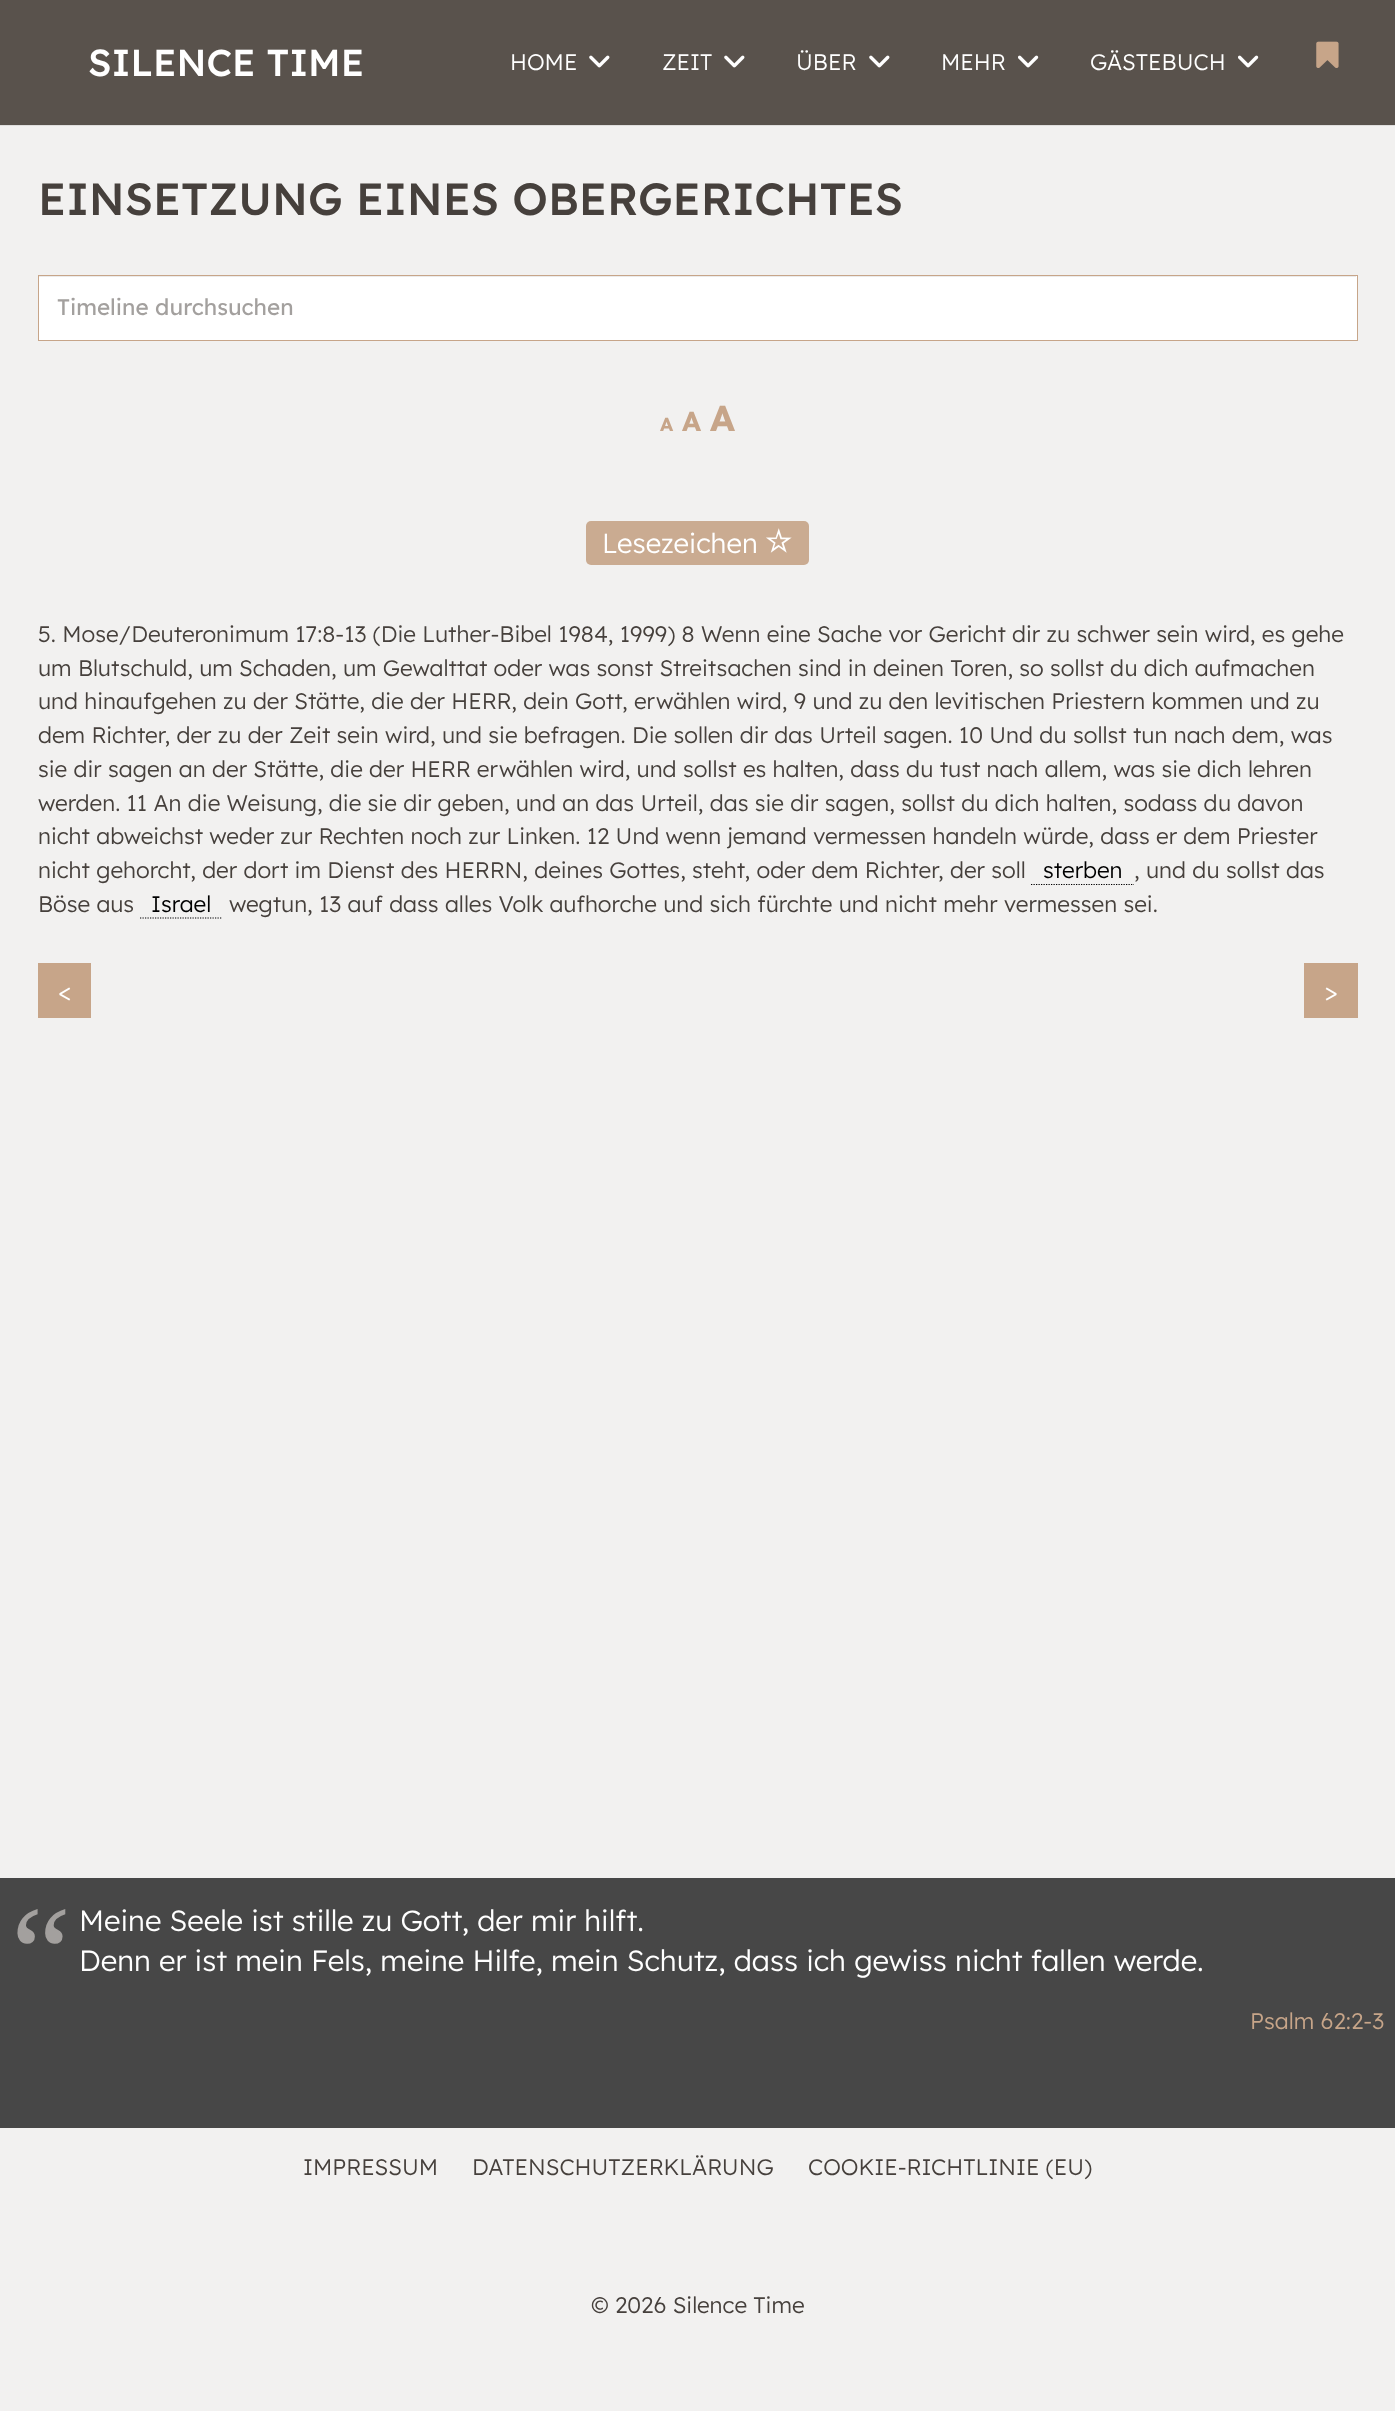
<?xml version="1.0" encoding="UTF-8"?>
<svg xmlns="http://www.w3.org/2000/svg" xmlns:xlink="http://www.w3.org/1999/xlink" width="1395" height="2411">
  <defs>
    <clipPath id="clip1"><path d="M 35 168 h 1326 v 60 h -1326 z m 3 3 h 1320 v 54 h -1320 z" clip-rule="evenodd" /></clipPath>
    <clipPath id="clip2"><path d="M 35 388 h 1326 v 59 h -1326 z m 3 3 h 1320 v 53 h -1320 z" clip-rule="evenodd" /></clipPath>
    <clipPath id="clip3"><path d="M 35 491 h 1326 v 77 h -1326 z m 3 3 h 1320 v 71 h -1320 z" clip-rule="evenodd" /></clipPath>
  </defs>
  <rect width="100%" height="100%" fill="#f2f1f0" />
  <rect y="125" width="1395" height="1" fill="#dfdedd" />
  <rect width="1395" height="125" fill="#59524c" />
  <image x="589" y="55" width="21" height="13" xlink:href="image1.png" />
  <image x="724" y="55" width="21" height="13" xlink:href="image1.png" />
  <image x="869" y="55" width="21" height="13" xlink:href="image1.png" />
  <image x="1018" y="55" width="21" height="13" xlink:href="image2.png" />
  <image x="1238" y="55" width="21" height="13" xlink:href="image2.png" />
  <image x="1316" y="41" width="23" height="27" xlink:href="image3.png" />
  <g clip-path="url(#clip1)">
    <rect x="38" y="171" width="1320" height="54" fill="#000000" fill-opacity="0.15" filter="blur(0.5px)" />
  </g>
  <rect x="39" y="276" width="1318" height="64" fill="#ffffff" />
  <rect x="39" y="276" width="1317" height="1" fill="#ebebeb" />
  <rect x="38.5" y="275.5" width="1319" height="65" fill="none" stroke="#c7a589" />
  <g clip-path="url(#clip2)">
    <rect x="38" y="391" width="1320" height="53" fill="#000000" fill-opacity="0.15" filter="blur(0.5px)" />
  </g>
  <g clip-path="url(#clip3)">
    <rect x="38" y="494" width="1320" height="71" fill="#000000" fill-opacity="0.15" filter="blur(0.5px)" />
  </g>
  <rect x="586" y="521" width="223" height="44" rx="5" fill="#caab91" />
  <image x="766" y="528" width="26" height="25" xlink:href="image4.png" />
  <path d="M 1031 884.5 h 103" fill="none" stroke="#000000" stroke-width="1.2" stroke-dasharray="1.25 1.25" />
  <path d="M 140 918 h 82.5" fill="none" stroke="#000000" stroke-width="1.2" stroke-dasharray="1.25 1.25" />
  <rect x="38" y="963" width="53" height="55" fill="#c7a589" />
  <rect x="1304" y="963" width="54" height="55" fill="#c7a589" />
  <rect y="1878" width="1395" height="250" fill="#474747" />
  <text x="88" y="76" style="font-family: Lexend; font-size: 37.5px; font-weight: 500; fill: #ffffff">SILENCE TIME</text>
  <text x="510" y="70" style="font-family: Lexend; font-size: 22.5px; font-weight: 300; fill: #ffffff">HOME</text>
  <text x="662" y="70" style="font-family: Lexend; font-size: 22.5px; font-weight: 300; fill: #ffffff">ZEIT</text>
  <text x="796" y="70" style="font-family: Lexend; font-size: 22.5px; font-weight: 300; fill: #ffffff">ÜBER</text>
  <text x="941" y="70" style="font-family: Lexend; font-size: 22.5px; font-weight: 300; fill: #ffffff">MEHR</text>
  <text x="1090" y="70" style="font-family: Lexend; font-size: 22.5px; font-weight: 300; fill: #ffffff">GÄSTEBUCH</text>
  <text x="38" y="215" style="font-family: Lexend; font-size: 45px; font-weight: 500; fill: #46403c">EINSETZUNG EINES OBERGERICHTES</text>
  <text x="57" y="315" style="font-family: Lexend; font-size: 22.5px; fill: #a3a09e">Timeline durchsuchen</text>
  <text x="660" y="431" style="font-family: Lexend; font-size: 19px; font-weight: bold; fill: #c7a589">A</text>
  <text x="682" y="431" style="font-family: Lexend; font-size: 27.5px; font-weight: bold; fill: #c7a589">A</text>
  <text x="710" y="431" style="font-family: Lexend; font-size: 36px; font-weight: bold; fill: #c7a589">A</text>
  <text x="602" y="553" style="font-family: Lexend; font-size: 27.5px; font-weight: 300; fill: #ffffff">Lesezeichen</text>
  <text x="38" y="642" style="font-family: Lexend; font-size: 22.5px; font-weight: 300; fill: #46403c">5. Mose/Deuteronimum 17:8-13 (Die Luther-Bibel 1984, 1999) 8 Wenn eine Sache vor Gericht dir zu schwer sein wird, es gehe</text>
  <text x="38" y="676" style="font-family: Lexend; font-size: 22.5px; font-weight: 300; fill: #46403c">um Blutschuld, um Schaden, um Gewalttat oder was sonst Streitsachen sind in deinen Toren, so sollst du dich aufmachen</text>
  <text x="38" y="709" style="font-family: Lexend; font-size: 22.5px; font-weight: 300; fill: #46403c">und hinaufgehen zu der Stätte, die der HERR, dein Gott, erwählen wird, 9 und zu den levitischen Priestern kommen und zu</text>
  <text x="38" y="743" style="font-family: Lexend; font-size: 22.5px; font-weight: 300; fill: #46403c">dem Richter, der zu der Zeit sein wird, und sie befragen. Die sollen dir das Urteil sagen. 10 Und du sollst tun nach dem, was</text>
  <text x="38" y="777" style="font-family: Lexend; font-size: 22.5px; font-weight: 300; fill: #46403c">sie dir sagen an der Stätte, die der HERR erwählen wird, und sollst es halten, dass du tust nach allem, was sie dich lehren</text>
  <text x="38" y="811" style="font-family: Lexend; font-size: 22.5px; font-weight: 300; fill: #46403c">werden. 11 An die Weisung, die sie dir geben, und an das Urteil, das sie dir sagen, sollst du dich halten, sodass du davon</text>
  <text x="38" y="844" style="font-family: Lexend; font-size: 22.5px; font-weight: 300; fill: #46403c">nicht abweichst weder zur Rechten noch zur Linken. 12 Und wenn jemand vermessen handeln würde, dass er dem Priester</text>
  <text x="38" y="878" style="font-family: Lexend; font-size: 22.5px; font-weight: 300; fill: #46403c">nicht gehorcht, der dort im Dienst des HERRN, deines Gottes, steht, oder dem Richter, der soll</text>
  <text x="1043" y="878" style="font-family: Lexend; font-size: 22.5px; font-weight: 300; fill: #000000">sterben</text>
  <text x="1134" y="878" style="font-family: Lexend; font-size: 22.5px; font-weight: 300; fill: #46403c">, und du sollst das</text>
  <text x="38" y="912" style="font-family: Lexend; font-size: 22.5px; font-weight: 300; fill: #46403c">Böse aus</text>
  <text x="151" y="912" style="font-family: Lexend; font-size: 22.5px; font-weight: 300; fill: #000000">Israel</text>
  <text x="229" y="912" style="font-family: Lexend; font-size: 22.5px; font-weight: 300; fill: #46403c">wegtun, 13 auf dass alles Volk aufhorche und sich fürchte und nicht mehr vermessen sei.</text>
  <text x="58" y="1001" style="font-family: Lexend; font-size: 27.5px; font-weight: 300; fill: #ffffff">&lt;</text>
  <text x="1324" y="1001" style="font-family: Lexend; font-size: 27.5px; font-weight: 300; fill: #ffffff">&gt;</text>
  <text x="11" y="1999" style="font-family: Liberation Serif; font-size: 135px; fill: #a3a09e">“</text>
  <text x="79" y="1931" style="font-family: Lexend; font-size: 29.25px; font-weight: 300; fill: #ffffff">Meine Seele ist stille zu Gott, der mir hilft.</text>
  <text x="79" y="1971" style="font-family: Lexend; font-size: 29.25px; font-weight: 300; fill: #ffffff">Denn er ist mein Fels, meine Hilfe, mein Schutz, dass ich gewiss nicht fallen werde.</text>
  <text x="1250" y="2029" style="font-family: Lexend; font-size: 22.5px; font-weight: 300; fill: #c7a589">Psalm 62:2-3</text>
  <text x="303" y="2175" style="font-family: Lexend; font-size: 22.5px; font-weight: 300; fill: #46403c">IMPRESSUM</text>
  <text x="472" y="2175" style="font-family: Lexend; font-size: 22.5px; font-weight: 300; fill: #46403c">DATENSCHUTZERKLÄRUNG</text>
  <text x="808" y="2175" style="font-family: Lexend; font-size: 22.5px; font-weight: 300; fill: #46403c">COOKIE-RICHTLINIE (EU)</text>
  <text x="591" y="2313" style="font-family: Lexend; font-size: 22.5px; font-weight: 300; fill: #46403c">© 2026 Silence Time</text>
</svg>
